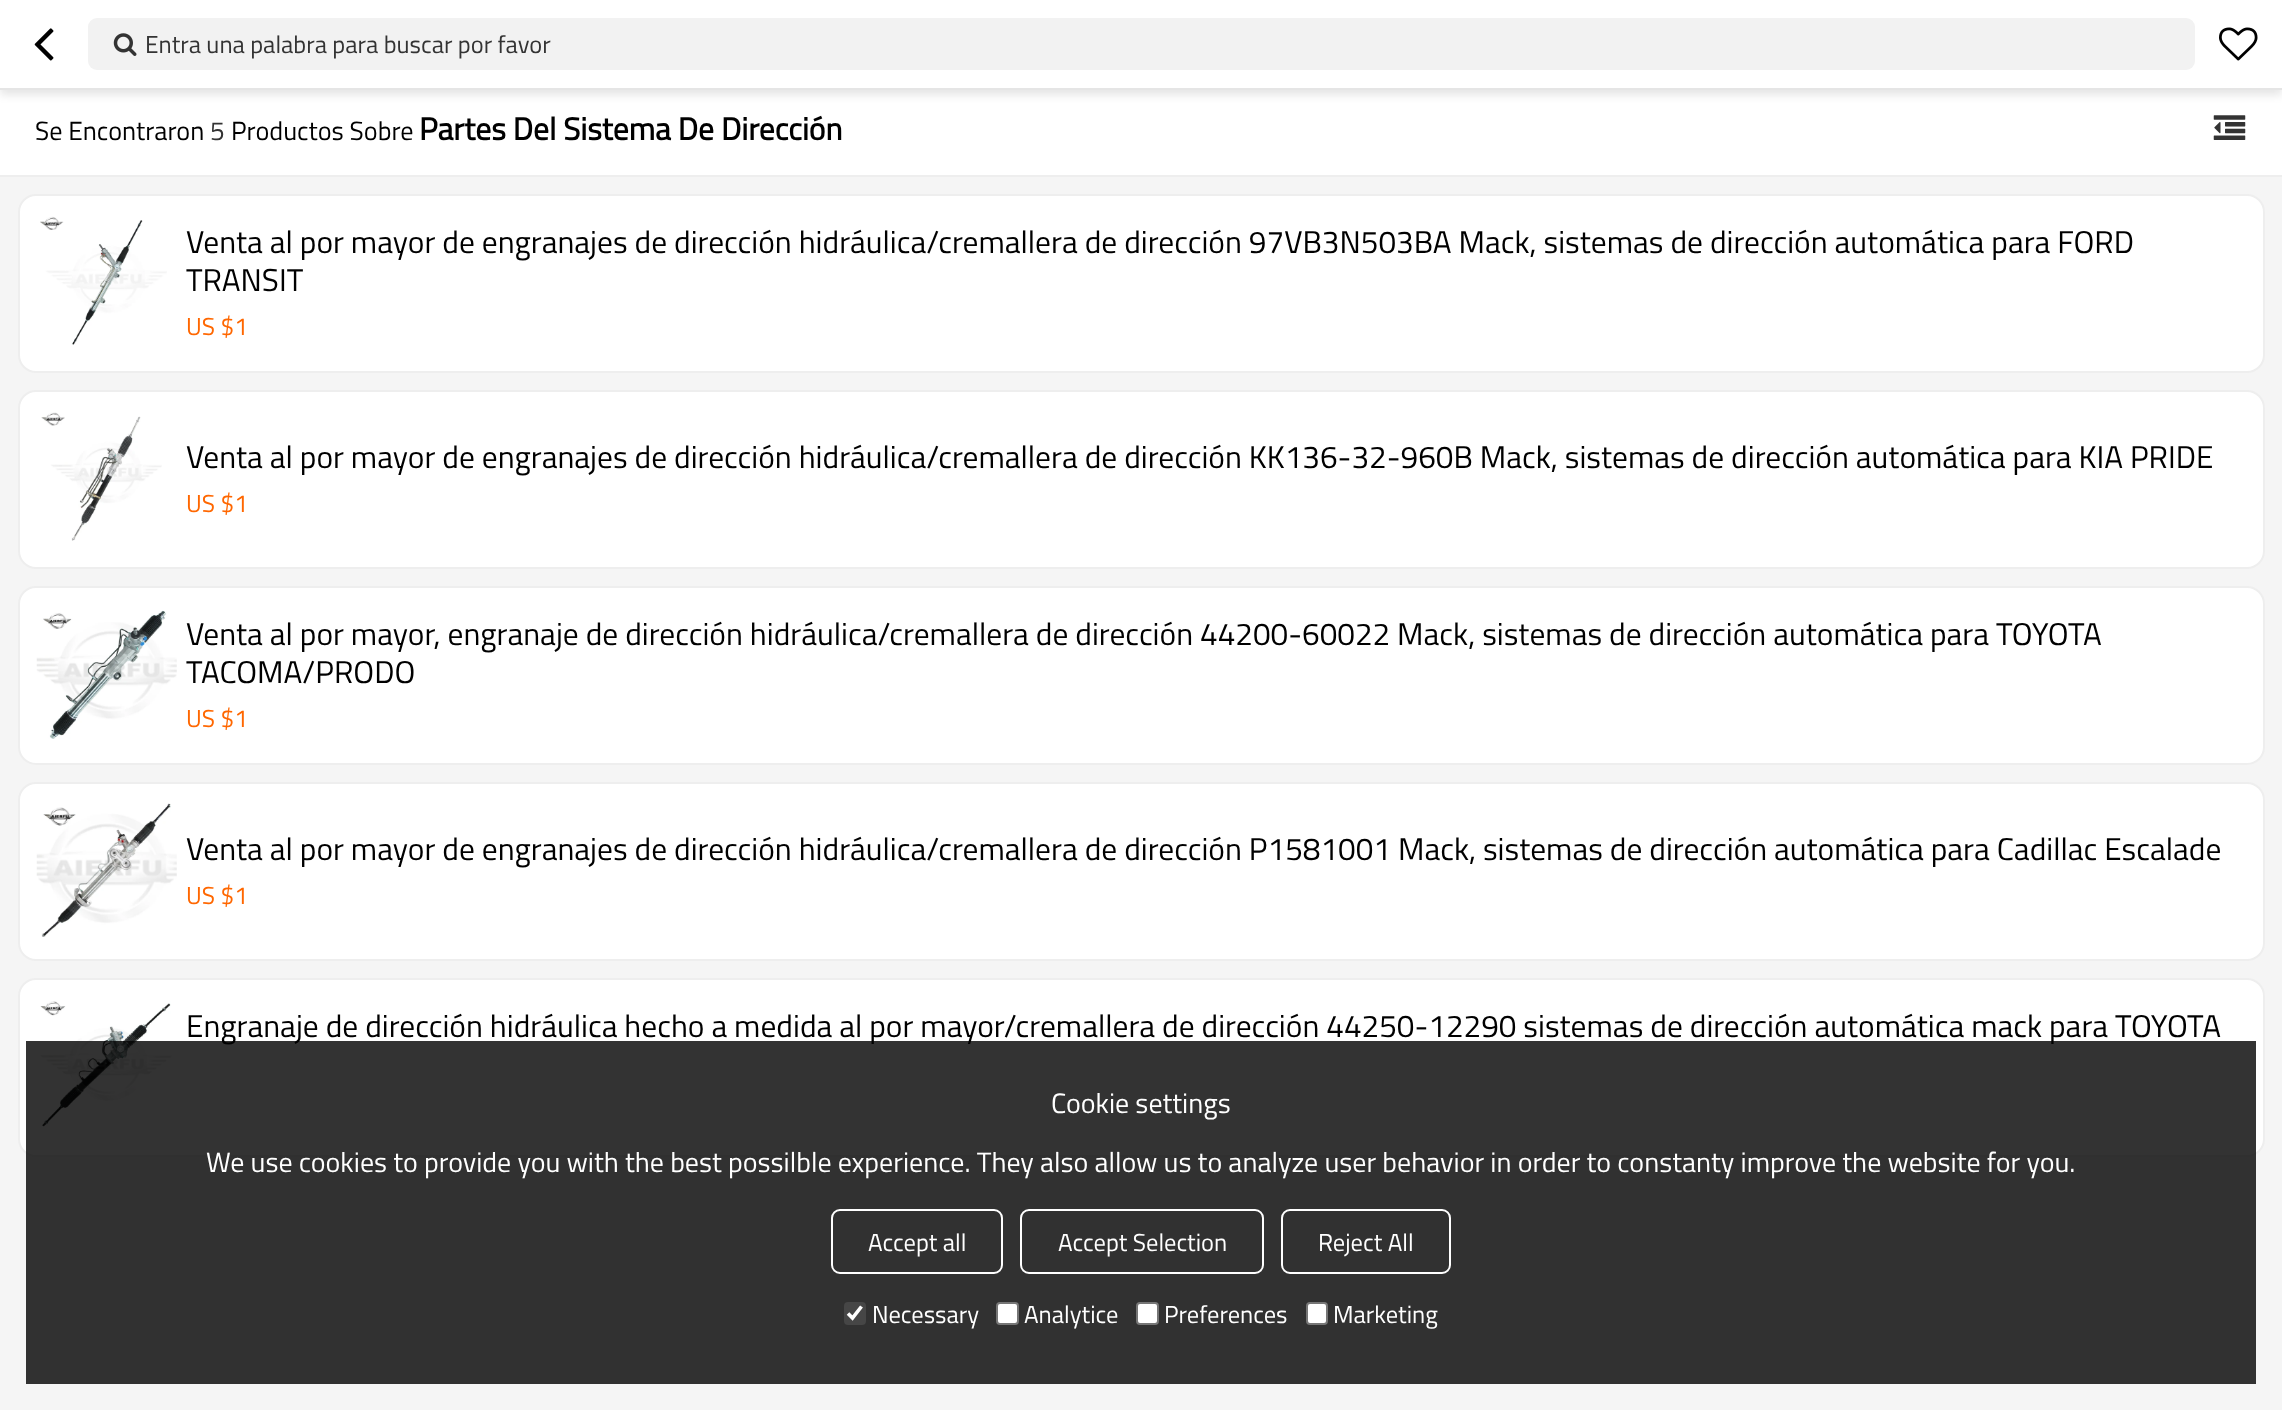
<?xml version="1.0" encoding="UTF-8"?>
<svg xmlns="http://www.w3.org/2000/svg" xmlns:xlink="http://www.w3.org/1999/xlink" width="2282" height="1410">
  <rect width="100%" height="100%" fill="#f5f5f5" />
  <rect y="90" width="2282" height="85" fill="#ffffff" />
  <rect y="5" width="2282" height="90" fill="#000000" fill-opacity="0.1" filter="blur(4.5px)" />
  <rect width="2282" height="88" fill="#ffffff" />
  <rect y="88" width="2282" height="2" fill="#e5e5e5" />
  <image x="34" y="28" width="20" height="33" xlink:href="image1.png" />
  <rect x="88" y="18" width="2107" height="52" rx="9" fill="#f2f2f2" />
  <image x="113" y="33" width="24" height="23" xlink:href="image2.png" />
  <image x="2219" y="27" width="39" height="34" xlink:href="image3.png" />
  <rect y="175" width="2282" height="2" fill="#eeeeee" />
  <image x="2213" y="115" width="33" height="25" xlink:href="image4.png" />
  <rect x="19" y="195" width="2245" height="177" rx="17" fill="#ffffff" stroke="#eeeeee" stroke-width="2" />
  <image x="40" y="216" width="127" height="129" xlink:href="image5.png" />
  <rect x="19" y="391" width="2245" height="177" rx="17" fill="#ffffff" stroke="#eeeeee" stroke-width="2" />
  <image x="41" y="412" width="121" height="129" xlink:href="image6.png" />
  <rect x="19" y="587" width="2245" height="177" rx="17" fill="#ffffff" stroke="#eeeeee" stroke-width="2" />
  <image x="36" y="610" width="141" height="129" xlink:href="image7.png" />
  <rect x="19" y="783" width="2245" height="177" rx="17" fill="#ffffff" stroke="#eeeeee" stroke-width="2" />
  <image x="36" y="803" width="141" height="134" xlink:href="image8.png" />
  <rect x="19" y="979" width="2245" height="177" rx="17" fill="#ffffff" stroke="#eeeeee" stroke-width="2" />
  <image x="40" y="1001" width="132" height="126" xlink:href="image9.png" />
  <text x="145" y="53" style="font-family: Titillium Web; font-size: 24.5px; fill: #333333">Entra una palabra para buscar por favor</text>
  <text x="35" y="140" style="font-family: Titillium Web; font-size: 26.25px; fill: #000000">Se Encontraron</text>
  <text x="210" y="140" style="font-family: Titillium Web; font-size: 26.25px; fill: #333333">5</text>
  <text x="231" y="140" style="font-family: Titillium Web; font-size: 26.25px; fill: #000000">Productos Sobre</text>
  <text x="419" y="140" style="font-family: Titillium Web; font-size: 31.5px; font-weight: bold; fill: #000000">Partes Del Sistema De Dirección</text>
  <text x="186" y="253" style="font-family: Titillium Web; font-size: 31.5px; fill: #000000">Venta al por mayor de engranajes de dirección hidráulica/cremallera de dirección 97VB3N503BA Mack, sistemas de dirección automática para FORD</text>
  <text x="186" y="291" style="font-family: Titillium Web; font-size: 31.5px; fill: #000000">TRANSIT</text>
  <text x="186" y="335" style="font-family: Titillium Web; font-size: 24.5px; fill: #ff6700">US $1</text>
  <text x="186" y="468" style="font-family: Titillium Web; font-size: 31.5px; fill: #000000">Venta al por mayor de engranajes de dirección hidráulica/cremallera de dirección KK136-32-960B Mack, sistemas de dirección automática para KIA PRIDE</text>
  <text x="186" y="512" style="font-family: Titillium Web; font-size: 24.5px; fill: #ff6700">US $1</text>
  <text x="186" y="645" style="font-family: Titillium Web; font-size: 31.5px; fill: #000000">Venta al por mayor, engranaje de dirección hidráulica/cremallera de dirección 44200-60022 Mack, sistemas de dirección automática para TOYOTA</text>
  <text x="186" y="683" style="font-family: Titillium Web; font-size: 31.5px; fill: #000000">TACOMA/PRODO</text>
  <text x="186" y="727" style="font-family: Titillium Web; font-size: 24.5px; fill: #ff6700">US $1</text>
  <text x="186" y="860" style="font-family: Titillium Web; font-size: 31.5px; fill: #000000">Venta al por mayor de engranajes de dirección hidráulica/cremallera de dirección P1581001 Mack, sistemas de dirección automática para Cadillac Escalade</text>
  <text x="186" y="904" style="font-family: Titillium Web; font-size: 24.5px; fill: #ff6700">US $1</text>
  <text x="186" y="1037" style="font-family: Titillium Web; font-size: 31.5px; fill: #000000">Engranaje de dirección hidráulica hecho a medida al por mayor/cremallera de dirección 44250-12290 sistemas de dirección automática mack para TOYOTA</text>
  <rect x="26" y="1041" width="2230" height="343" fill="#000000" fill-opacity="0.8" />
  <text x="1051" y="1113" style="font-family: Titillium Web; font-size: 28px; fill: #ffffff">Cookie settings</text>
  <text x="206" y="1172" style="font-family: Titillium Web; font-size: 28px; fill: #ffffff">We use cookies to provide you with the best possilble experience. They also allow us to analyze user behavior in order to constanty improve the website for you.</text>
  <rect x="832" y="1210" width="170" height="63" rx="8" fill="none" stroke="#ffffff" stroke-width="2" />
  <text x="868" y="1251" style="font-family: Titillium Web; font-size: 24.5px; fill: #ffffff">Accept all</text>
  <rect x="1021" y="1210" width="242" height="63" rx="8" fill="none" stroke="#ffffff" stroke-width="2" />
  <text x="1058" y="1251" style="font-family: Titillium Web; font-size: 24.5px; fill: #ffffff">Accept Selection</text>
  <rect x="1282" y="1210" width="168" height="63" rx="8" fill="none" stroke="#ffffff" stroke-width="2" />
  <text x="1318" y="1251" style="font-family: Titillium Web; font-size: 24.5px; fill: #ffffff">Reject All</text>
  <rect x="844" y="1302" width="22" height="23" rx="4" fill="#464646" />
  <path d="M 848 1313.5 l 4.5 4.5 l 9 -11.5" fill="none" stroke="#ffffff" stroke-width="3.6" />
  <text x="872" y="1323" style="font-family: Titillium Web; font-size: 24.5px; fill: #ffffff">Necessary</text>
  <rect x="997" y="1303" width="21" height="21" rx="3" fill="#ffffff" stroke="#767676" stroke-width="2" />
  <text x="1024" y="1323" style="font-family: Titillium Web; font-size: 24.5px; fill: #ffffff">Analytice</text>
  <rect x="1137" y="1303" width="21" height="21" rx="3" fill="#ffffff" stroke="#767676" stroke-width="2" />
  <text x="1164" y="1323" style="font-family: Titillium Web; font-size: 24.5px; fill: #ffffff">Preferences</text>
  <rect x="1307" y="1303" width="20" height="21" rx="3" fill="#ffffff" stroke="#767676" stroke-width="2" />
  <text x="1333" y="1323" style="font-family: Titillium Web; font-size: 24.5px; fill: #ffffff">Marketing</text>
</svg>
